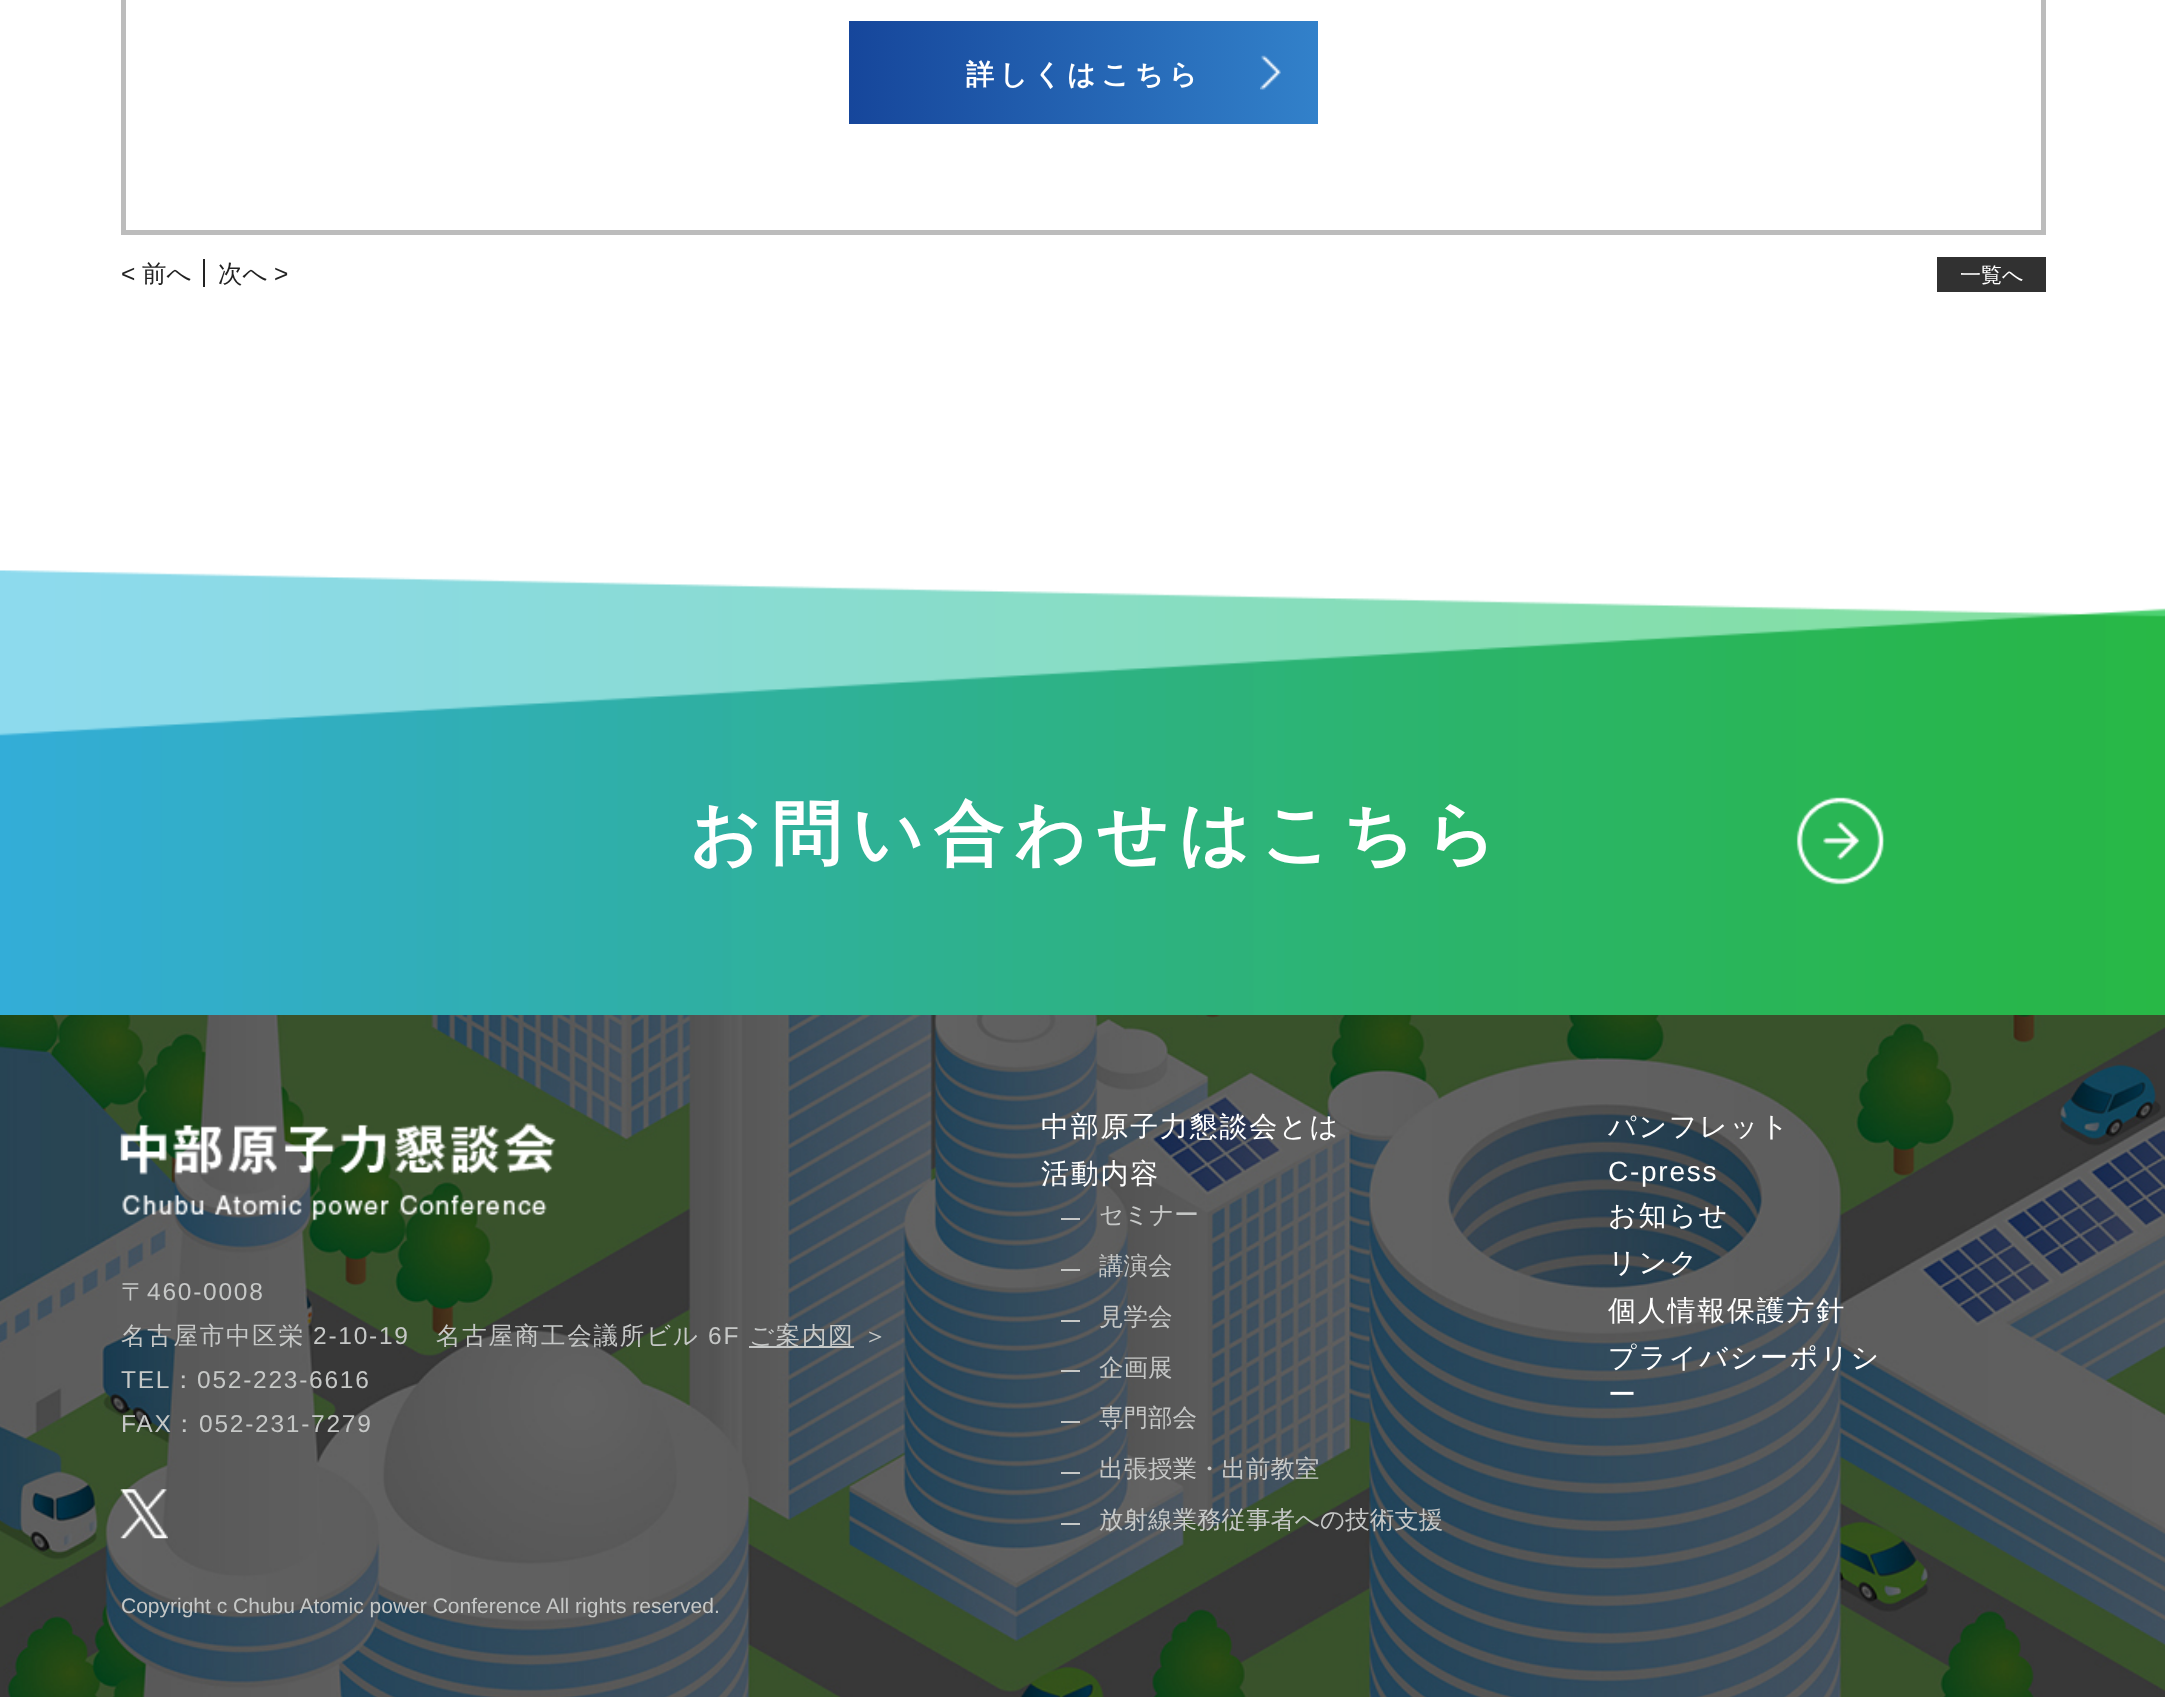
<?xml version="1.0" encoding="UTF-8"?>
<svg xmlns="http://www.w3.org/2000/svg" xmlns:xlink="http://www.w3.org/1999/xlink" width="2165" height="1697">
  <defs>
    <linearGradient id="g1" gradientUnits="userSpaceOnUse" x1="849" y1="73" x2="1318" y2="73"><stop offset="0" stop-color="#16469b" /><stop offset="1" stop-color="#3281ca" /></linearGradient>
  </defs>
  <rect width="100%" height="100%" fill="#ffffff" />
  <rect x="123.5" y="-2.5" width="1920" height="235" fill="none" stroke="#bcbcbc" stroke-width="5" />
  <rect x="849" y="21" width="469" height="103" fill="url(#g1)" />
  <image x="1260" y="55" width="21" height="35" xlink:href="image1.png" />
  <rect x="203" y="259" width="2" height="28" fill="#222222" />
  <rect x="1937" y="257" width="109" height="35" fill="#313131" />
  <image x="0" y="570" width="2165" height="445" xlink:href="image2.png" />
  <image x="1796" y="797" width="89" height="88" xlink:href="image3.png" />
  <image x="0" y="1015" width="2165" height="682" xlink:href="image4.png" />
  <image x="120" y="1123" width="437" height="98" xlink:href="image5.png" />
  <rect x="749" y="1346" width="105" height="2" fill="#c6c8c7" />
  <image x="120" y="1489" width="48" height="50" xlink:href="image6.png" />
  <rect x="1061" y="1218" width="19" height="2" fill="#c6c8c7" />
  <rect x="1061" y="1269" width="19" height="2" fill="#c6c8c7" />
  <rect x="1061" y="1320" width="19" height="2" fill="#c6c8c7" />
  <rect x="1061" y="1370" width="19" height="2" fill="#c6c8c7" />
  <rect x="1061" y="1421" width="19" height="2" fill="#c6c8c7" />
  <rect x="1061" y="1472" width="19" height="2" fill="#c6c8c7" />
  <rect x="1061" y="1523" width="19" height="2" fill="#c6c8c7" />
  <text x="966" y="84" style="font-family: WenQuanYi Zen Hei; font-size: 28px; font-weight: bold; letter-spacing: 5.25px; fill: #ffffff">詳しくはこちら</text>
  <text x="121" y="282" style="font-family: Liberation Sans; font-size: 24.5px; fill: #222222">&lt;</text>
  <text x="142" y="282" style="font-family: WenQuanYi Zen Hei; font-size: 24.5px; font-weight: 500; fill: #222222">前へ</text>
  <text x="218" y="282" style="font-family: WenQuanYi Zen Hei; font-size: 24.5px; font-weight: 500; fill: #222222">次へ</text>
  <text x="274" y="282" style="font-family: Liberation Sans; font-size: 24.5px; fill: #222222">&gt;</text>
  <text x="1960" y="282" style="font-family: WenQuanYi Zen Hei; font-size: 21px; font-weight: 500; fill: #ffffff">一覧へ</text>
  <text x="689" y="858" style="font-family: WenQuanYi Zen Hei; font-size: 70px; font-weight: bold; letter-spacing: 10.5px; fill: #ffffff">お問い合わせはこちら</text>
  <text x="121" y="1300" style="font-family: WenQuanYi Zen Hei; font-size: 24.5px; font-weight: 500; letter-spacing: 1.75px; fill: #c6c8c7">〒</text>
  <text x="147" y="1300" style="font-family: Liberation Sans; font-size: 24.5px; letter-spacing: 1.75px; fill: #c6c8c7">460-0008</text>
  <text x="121" y="1344" style="font-family: WenQuanYi Zen Hei; font-size: 24.5px; font-weight: 500; letter-spacing: 1.75px; fill: #c6c8c7">名古屋市中区栄</text>
  <text x="313" y="1344" style="font-family: Liberation Sans; font-size: 24.5px; letter-spacing: 1.75px; fill: #c6c8c7">2-10-19</text>
  <text x="436" y="1344" style="font-family: WenQuanYi Zen Hei; font-size: 24.5px; font-weight: 500; letter-spacing: 1.75px; fill: #c6c8c7">名古屋商工会議所ビル</text>
  <text x="708" y="1344" style="font-family: Liberation Sans; font-size: 24.5px; letter-spacing: 1.75px; fill: #c6c8c7">6F</text>
  <text x="749" y="1344" style="font-family: WenQuanYi Zen Hei; font-size: 24.5px; font-weight: 500; letter-spacing: 1.75px; fill: #c6c8c7">ご案内図</text>
  <text x="863" y="1344" style="font-family: WenQuanYi Zen Hei; font-size: 24.5px; font-weight: 500; letter-spacing: 1.75px; fill: #c6c8c7">＞</text>
  <text x="121" y="1388" style="font-family: Liberation Sans; font-size: 24.5px; letter-spacing: 1.75px; fill: #c6c8c7">TEL</text>
  <text x="171" y="1388" style="font-family: WenQuanYi Zen Hei; font-size: 24.5px; font-weight: 500; letter-spacing: 1.75px; fill: #c6c8c7">：</text>
  <text x="197" y="1388" style="font-family: Liberation Sans; font-size: 24.5px; letter-spacing: 1.75px; fill: #c6c8c7">052-223-6616</text>
  <text x="121" y="1432" style="font-family: Liberation Sans; font-size: 24.5px; letter-spacing: 1.75px; fill: #c6c8c7">FAX</text>
  <text x="172" y="1432" style="font-family: WenQuanYi Zen Hei; font-size: 24.5px; font-weight: 500; letter-spacing: 1.75px; fill: #c6c8c7">：</text>
  <text x="199" y="1432" style="font-family: Liberation Sans; font-size: 24.5px; letter-spacing: 1.75px; fill: #c6c8c7">052-231-7279</text>
  <text x="121" y="1613" style="font-family: Liberation Sans; font-size: 21px; fill: #c6c8c7">Copyright c Chubu Atomic power Conference All rights reserved.</text>
  <text x="1041" y="1136" style="font-family: WenQuanYi Zen Hei; font-size: 28px; font-weight: 500; letter-spacing: 1.75px; fill: #ffffff">中部原子力懇談会とは</text>
  <text x="1041" y="1183" style="font-family: WenQuanYi Zen Hei; font-size: 28px; font-weight: 500; letter-spacing: 1.75px; fill: #ffffff">活動内容</text>
  <text x="1099" y="1223" style="font-family: WenQuanYi Zen Hei; font-size: 24.5px; font-weight: 500; fill: #c6c8c7">セミナー</text>
  <text x="1099" y="1274" style="font-family: WenQuanYi Zen Hei; font-size: 24.5px; font-weight: 500; fill: #c6c8c7">講演会</text>
  <text x="1099" y="1325" style="font-family: WenQuanYi Zen Hei; font-size: 24.5px; font-weight: 500; fill: #c6c8c7">見学会</text>
  <text x="1099" y="1376" style="font-family: WenQuanYi Zen Hei; font-size: 24.5px; font-weight: 500; fill: #c6c8c7">企画展</text>
  <text x="1099" y="1426" style="font-family: WenQuanYi Zen Hei; font-size: 24.5px; font-weight: 500; fill: #c6c8c7">専門部会</text>
  <text x="1099" y="1477" style="font-family: WenQuanYi Zen Hei; font-size: 24.5px; font-weight: 500; fill: #c6c8c7">出張授業・出前教室</text>
  <text x="1099" y="1528" style="font-family: WenQuanYi Zen Hei; font-size: 24.5px; font-weight: 500; fill: #c6c8c7">放射線業務従事者への技術支援</text>
  <text x="1608" y="1136" style="font-family: WenQuanYi Zen Hei; font-size: 28px; font-weight: 500; letter-spacing: 1.75px; fill: #ffffff">パンフレット</text>
  <text x="1608" y="1181" style="font-family: Liberation Sans; font-size: 28px; letter-spacing: 1.75px; fill: #ffffff">C-press</text>
  <text x="1608" y="1225" style="font-family: WenQuanYi Zen Hei; font-size: 28px; font-weight: 500; letter-spacing: 1.75px; fill: #ffffff">お知らせ</text>
  <text x="1608" y="1272" style="font-family: WenQuanYi Zen Hei; font-size: 28px; font-weight: 500; letter-spacing: 1.75px; fill: #ffffff">リンク</text>
  <text x="1608" y="1320" style="font-family: WenQuanYi Zen Hei; font-size: 28px; font-weight: 500; letter-spacing: 1.75px; fill: #ffffff">個人情報保護方針</text>
  <text x="1608" y="1367" style="font-family: WenQuanYi Zen Hei; font-size: 28px; font-weight: 500; letter-spacing: 1.75px; fill: #ffffff">プライバシーポリシ</text>
  <text x="1608" y="1404" style="font-family: WenQuanYi Zen Hei; font-size: 28px; font-weight: 500; letter-spacing: 1.75px; fill: #ffffff">ー</text>
</svg>
